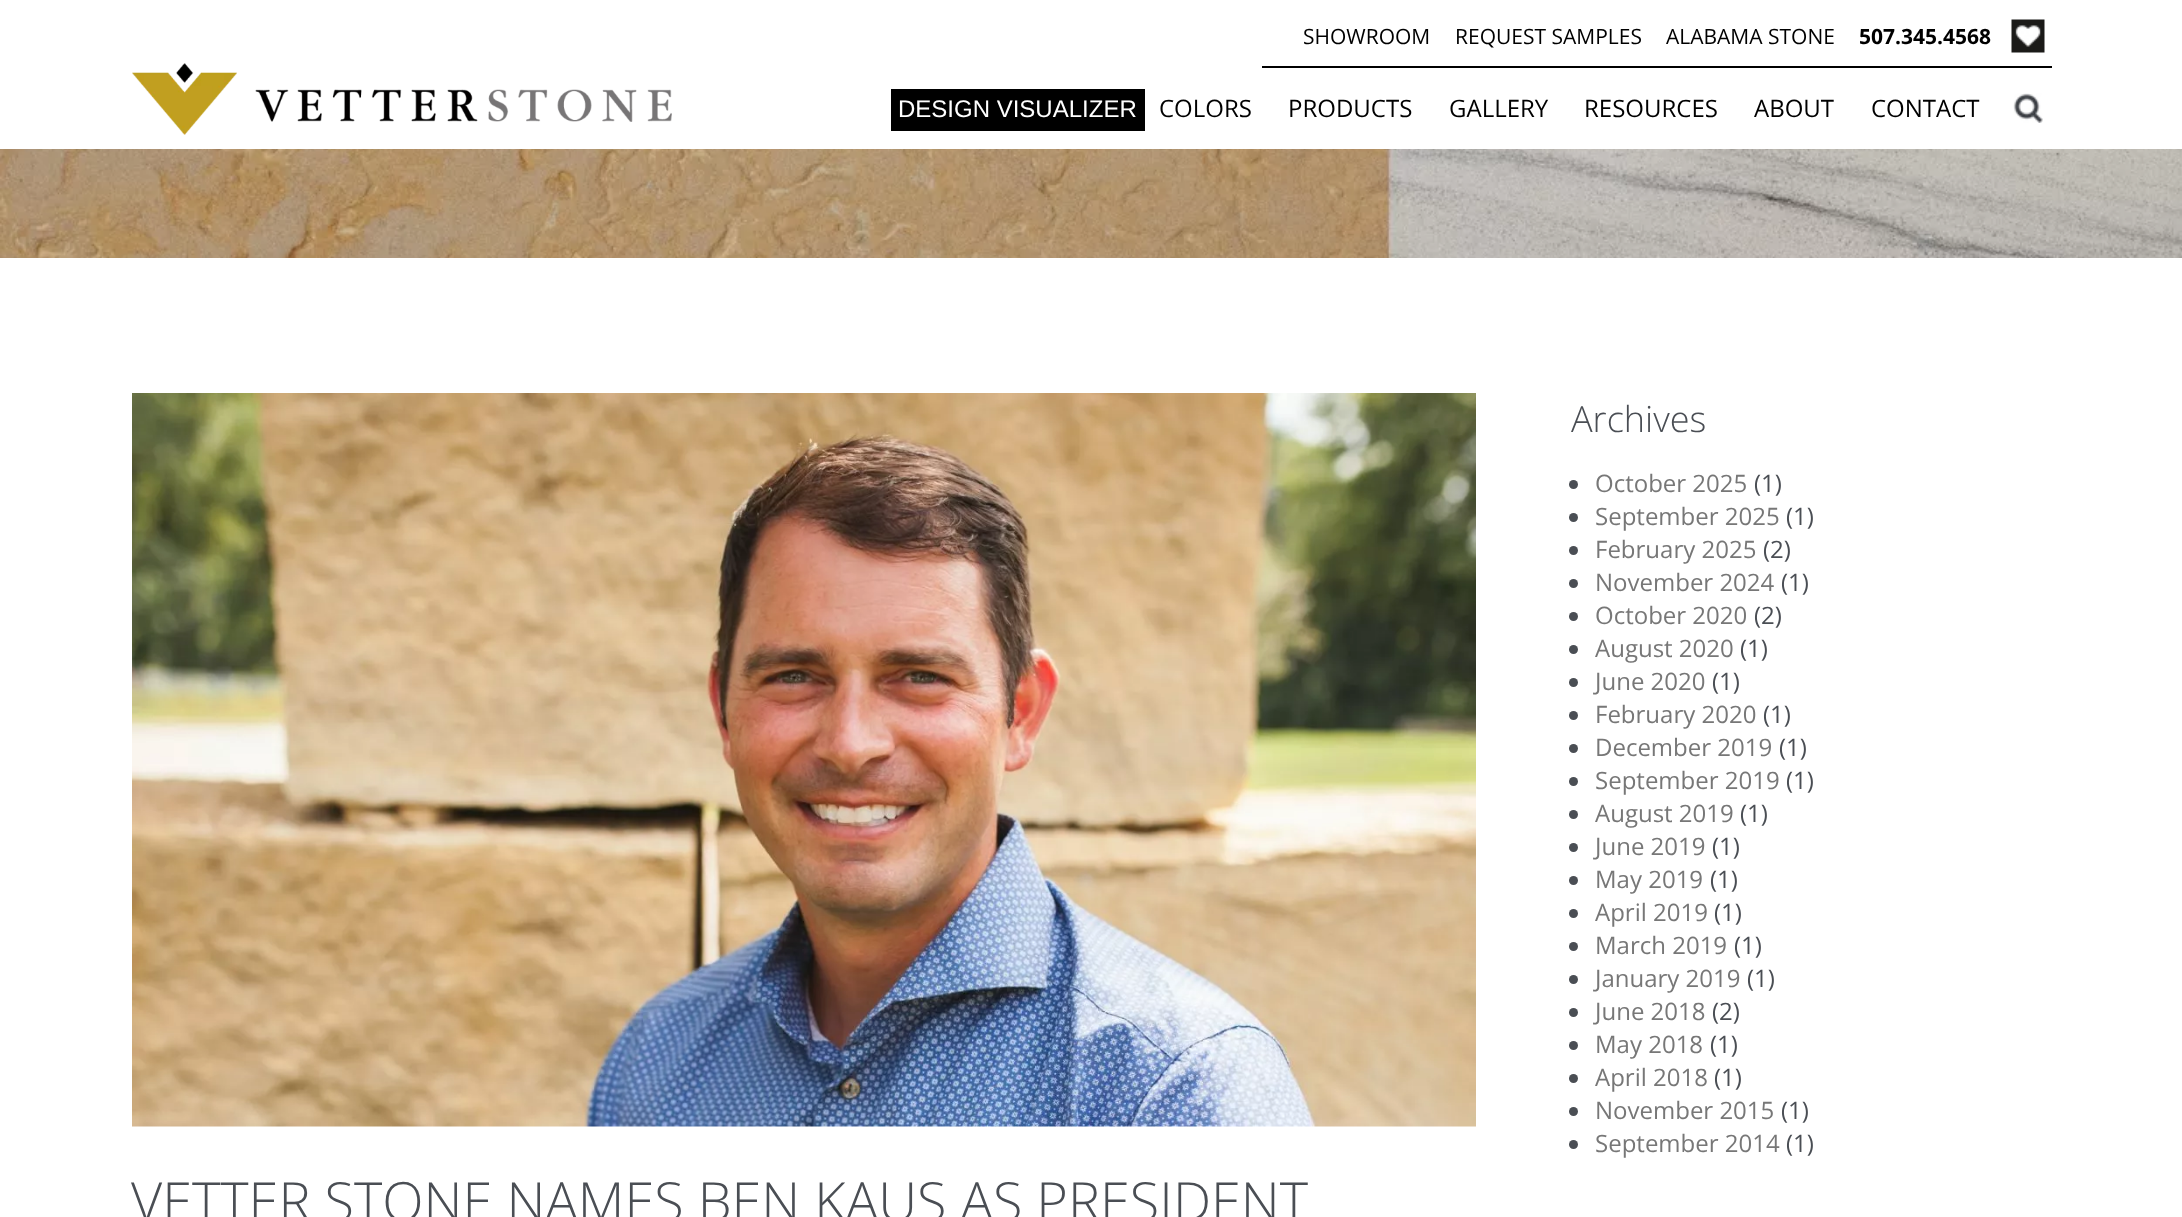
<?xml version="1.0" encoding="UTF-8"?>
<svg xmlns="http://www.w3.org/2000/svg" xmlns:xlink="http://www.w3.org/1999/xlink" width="2182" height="1217">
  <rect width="100%" height="100%" fill="#ffffff" />
  <rect x="1262" y="66" width="790" height="2" fill="#000000" />
  <image x="2011" y="19" width="34" height="34" xlink:href="image1.png" />
  <image x="132" y="63" width="540" height="72" xlink:href="image2.png" />
  <image x="2013" y="93" width="30" height="30" xlink:href="image3.png" />
  <rect x="891" y="89" width="254" height="42" fill="#000000" />
  <image x="0" y="149" width="2182" height="109" xlink:href="image4.png" />
  <circle cx="1573.5" cy="484.5" r="4.5" fill="#4a4e54" />
  <circle cx="1573.5" cy="517.5" r="4.5" fill="#4a4e54" />
  <circle cx="1573.5" cy="550.5" r="4.5" fill="#4a4e54" />
  <circle cx="1573.5" cy="583.5" r="4.5" fill="#4a4e54" />
  <circle cx="1573.5" cy="616.5" r="4.5" fill="#4a4e54" />
  <circle cx="1573.5" cy="649.5" r="4.5" fill="#4a4e54" />
  <circle cx="1573.5" cy="682.5" r="4.5" fill="#4a4e54" />
  <circle cx="1573.5" cy="715.5" r="4.5" fill="#4a4e54" />
  <circle cx="1573.5" cy="748.5" r="4.5" fill="#4a4e54" />
  <circle cx="1573.5" cy="781.5" r="4.5" fill="#4a4e54" />
  <circle cx="1573.5" cy="814.5" r="4.5" fill="#4a4e54" />
  <circle cx="1573.5" cy="847.5" r="4.5" fill="#4a4e54" />
  <circle cx="1573.5" cy="880.5" r="4.5" fill="#4a4e54" />
  <circle cx="1573.5" cy="913.5" r="4.5" fill="#4a4e54" />
  <circle cx="1573.5" cy="946.5" r="4.5" fill="#4a4e54" />
  <circle cx="1573.5" cy="979.5" r="4.5" fill="#4a4e54" />
  <circle cx="1573.5" cy="1012.5" r="4.5" fill="#4a4e54" />
  <circle cx="1573.5" cy="1045.5" r="4.5" fill="#4a4e54" />
  <circle cx="1573.5" cy="1078.5" r="4.5" fill="#4a4e54" />
  <circle cx="1573.5" cy="1111.5" r="4.5" fill="#4a4e54" />
  <circle cx="1573.5" cy="1144.5" r="4.5" fill="#4a4e54" />
  <image x="132" y="393" width="1344" height="734" xlink:href="image5.png" />
  <text x="1303" y="44" style="font-family: Open Sans; font-size: 21px; fill: #000000">SHOWROOM</text>
  <text x="1455" y="44" style="font-family: Open Sans; font-size: 21px; fill: #000000">REQUEST SAMPLES</text>
  <text x="1666" y="44" style="font-family: Open Sans; font-size: 21px; fill: #000000">ALABAMA STONE</text>
  <text x="1859" y="44" style="font-family: Open Sans; font-size: 21px; font-weight: bold; fill: #000000">507.345.4568</text>
  <text x="898" y="117" style="font-family: Liberation Sans; font-size: 24px; fill: #ffffff">DESIGN VISUALIZER</text>
  <text x="1159" y="117" style="font-family: Open Sans; font-size: 24px; fill: #000000">COLORS</text>
  <text x="1288" y="117" style="font-family: Open Sans; font-size: 24px; fill: #000000">PRODUCTS</text>
  <text x="1449" y="117" style="font-family: Open Sans; font-size: 24px; fill: #000000">GALLERY</text>
  <text x="1584" y="117" style="font-family: Open Sans; font-size: 24px; fill: #000000">RESOURCES</text>
  <text x="1754" y="117" style="font-family: Open Sans; font-size: 24px; fill: #000000">ABOUT</text>
  <text x="1871" y="117" style="font-family: Open Sans; font-size: 24px; fill: #000000">CONTACT</text>
  <text x="1571" y="432" style="font-family: Open Sans; font-size: 36px; font-weight: 300; fill: #4a4e54">Archives</text>
  <text x="1595" y="492" style="font-family: Open Sans; font-size: 24px; fill: #777777">October 2025</text>
  <text x="1754" y="492" style="font-family: Open Sans; font-size: 24px; fill: #4a4e54">(1)</text>
  <text x="1595" y="525" style="font-family: Open Sans; font-size: 24px; fill: #777777">September 2025</text>
  <text x="1786" y="525" style="font-family: Open Sans; font-size: 24px; fill: #4a4e54">(1)</text>
  <text x="1595" y="558" style="font-family: Open Sans; font-size: 24px; fill: #777777">February 2025</text>
  <text x="1763" y="558" style="font-family: Open Sans; font-size: 24px; fill: #4a4e54">(2)</text>
  <text x="1595" y="591" style="font-family: Open Sans; font-size: 24px; fill: #777777">November 2024</text>
  <text x="1781" y="591" style="font-family: Open Sans; font-size: 24px; fill: #4a4e54">(1)</text>
  <text x="1595" y="624" style="font-family: Open Sans; font-size: 24px; fill: #777777">October 2020</text>
  <text x="1754" y="624" style="font-family: Open Sans; font-size: 24px; fill: #4a4e54">(2)</text>
  <text x="1595" y="657" style="font-family: Open Sans; font-size: 24px; fill: #777777">August 2020</text>
  <text x="1740" y="657" style="font-family: Open Sans; font-size: 24px; fill: #4a4e54">(1)</text>
  <text x="1595" y="690" style="font-family: Open Sans; font-size: 24px; fill: #777777">June 2020</text>
  <text x="1712" y="690" style="font-family: Open Sans; font-size: 24px; fill: #4a4e54">(1)</text>
  <text x="1595" y="723" style="font-family: Open Sans; font-size: 24px; fill: #777777">February 2020</text>
  <text x="1763" y="723" style="font-family: Open Sans; font-size: 24px; fill: #4a4e54">(1)</text>
  <text x="1595" y="756" style="font-family: Open Sans; font-size: 24px; fill: #777777">December 2019</text>
  <text x="1779" y="756" style="font-family: Open Sans; font-size: 24px; fill: #4a4e54">(1)</text>
  <text x="1595" y="789" style="font-family: Open Sans; font-size: 24px; fill: #777777">September 2019</text>
  <text x="1786" y="789" style="font-family: Open Sans; font-size: 24px; fill: #4a4e54">(1)</text>
  <text x="1595" y="822" style="font-family: Open Sans; font-size: 24px; fill: #777777">August 2019</text>
  <text x="1740" y="822" style="font-family: Open Sans; font-size: 24px; fill: #4a4e54">(1)</text>
  <text x="1595" y="855" style="font-family: Open Sans; font-size: 24px; fill: #777777">June 2019</text>
  <text x="1712" y="855" style="font-family: Open Sans; font-size: 24px; fill: #4a4e54">(1)</text>
  <text x="1595" y="888" style="font-family: Open Sans; font-size: 24px; fill: #777777">May 2019</text>
  <text x="1710" y="888" style="font-family: Open Sans; font-size: 24px; fill: #4a4e54">(1)</text>
  <text x="1595" y="921" style="font-family: Open Sans; font-size: 24px; fill: #777777">April 2019</text>
  <text x="1714" y="921" style="font-family: Open Sans; font-size: 24px; fill: #4a4e54">(1)</text>
  <text x="1595" y="954" style="font-family: Open Sans; font-size: 24px; fill: #777777">March 2019</text>
  <text x="1734" y="954" style="font-family: Open Sans; font-size: 24px; fill: #4a4e54">(1)</text>
  <text x="1595" y="987" style="font-family: Open Sans; font-size: 24px; fill: #777777">January 2019</text>
  <text x="1747" y="987" style="font-family: Open Sans; font-size: 24px; fill: #4a4e54">(1)</text>
  <text x="1595" y="1020" style="font-family: Open Sans; font-size: 24px; fill: #777777">June 2018</text>
  <text x="1712" y="1020" style="font-family: Open Sans; font-size: 24px; fill: #4a4e54">(2)</text>
  <text x="1595" y="1053" style="font-family: Open Sans; font-size: 24px; fill: #777777">May 2018</text>
  <text x="1710" y="1053" style="font-family: Open Sans; font-size: 24px; fill: #4a4e54">(1)</text>
  <text x="1595" y="1086" style="font-family: Open Sans; font-size: 24px; fill: #777777">April 2018</text>
  <text x="1714" y="1086" style="font-family: Open Sans; font-size: 24px; fill: #4a4e54">(1)</text>
  <text x="1595" y="1119" style="font-family: Open Sans; font-size: 24px; fill: #777777">November 2015</text>
  <text x="1781" y="1119" style="font-family: Open Sans; font-size: 24px; fill: #4a4e54">(1)</text>
  <text x="1595" y="1152" style="font-family: Open Sans; font-size: 24px; fill: #777777">September 2014</text>
  <text x="1786" y="1152" style="font-family: Open Sans; font-size: 24px; fill: #4a4e54">(1)</text>
  <text x="131" y="1221" style="font-family: Open Sans; font-size: 54px; font-weight: 300; fill: #4a4e54">VETTER STONE NAMES BEN KAUS AS PRESIDENT</text>
</svg>
